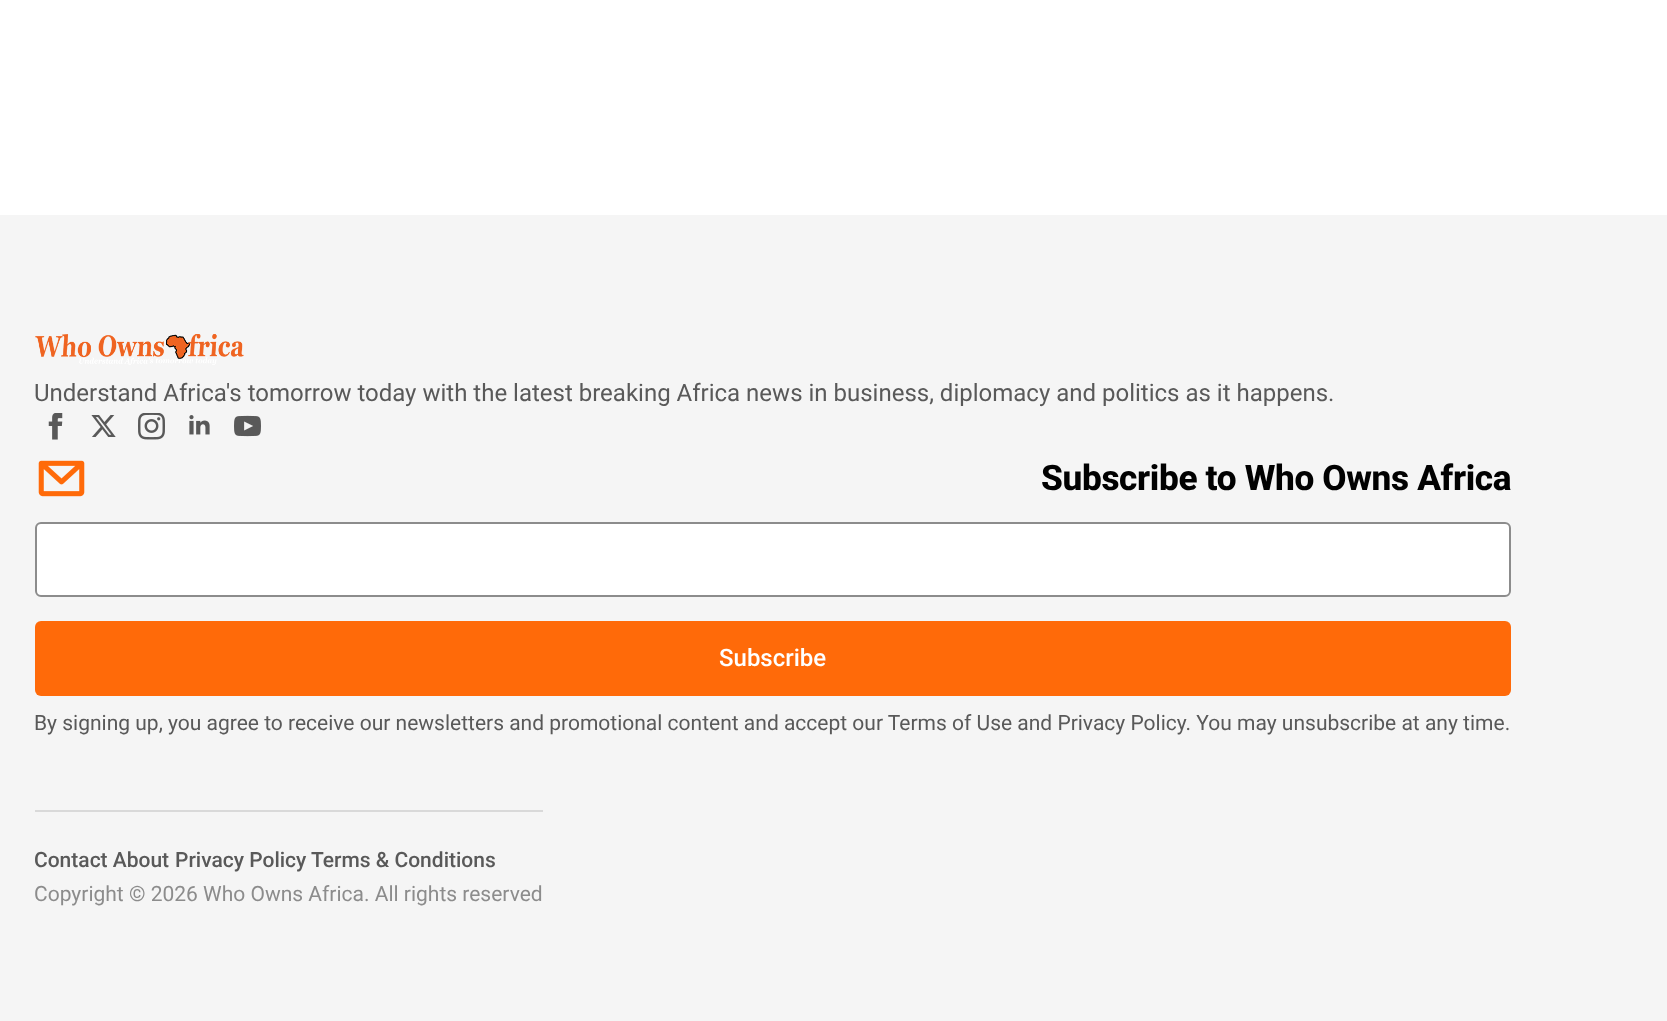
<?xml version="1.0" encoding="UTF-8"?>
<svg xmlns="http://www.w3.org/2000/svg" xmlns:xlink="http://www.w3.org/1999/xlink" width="1667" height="1021">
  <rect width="100%" height="100%" fill="#ffffff" />
  <rect y="215" width="1667" height="806" fill="#f5f5f5" />
  <image x="35" y="334" width="209" height="31" xlink:href="image1.png" />
  <image x="48" y="413" width="15" height="27" xlink:href="image2.png" />
  <image x="91" y="415" width="25" height="22" xlink:href="image3.png" />
  <image x="138" y="413" width="27" height="27" xlink:href="image4.png" />
  <image x="189" y="415" width="21" height="20" xlink:href="image5.png" />
  <image x="234" y="415" width="27" height="22" xlink:href="image6.png" />
  <image x="38" y="460" width="47" height="37" xlink:href="image7.png" />
  <rect x="36" y="523" width="1474" height="73" rx="5" fill="#ffffff" stroke="#8c8c8c" stroke-width="2" />
  <rect x="35" y="621" width="1476" height="75" rx="6" fill="#ff6a09" />
  <rect x="35" y="810" width="508" height="2" fill="#d9d9d9" />
  <text x="34" y="401" style="font-family: Roboto; font-size: 24px; fill: #595959">Understand Africa's tomorrow today with the latest breaking Africa news in business, diplomacy and politics as it happens.</text>
  <text x="1041" y="490" style="font-family: Roboto; font-size: 35.2px; font-weight: 800; letter-spacing: -0.35px; fill: #010101">Subscribe to Who Owns Africa</text>
  <text x="719" y="666" style="font-family: Roboto; font-size: 24px; font-weight: 500; fill: #ffffff">Subscribe</text>
  <text x="34" y="730" style="font-family: Roboto; font-size: 21px; fill: #595959">By signing up, you agree to receive our newsletters and promotional content and accept our Terms of Use and Privacy Policy. You may unsubscribe at any time.</text>
  <text x="34" y="867" style="font-family: Roboto; font-size: 21px; font-weight: 500; fill: #595959">Contact About</text>
  <text x="175" y="867" style="font-family: Roboto; font-size: 21px; font-weight: 500; fill: #595959">Privacy Policy</text>
  <text x="311" y="867" style="font-family: Roboto; font-size: 21px; font-weight: 500; fill: #595959">Terms &amp; Conditions</text>
  <text x="34" y="901" style="font-family: Roboto; font-size: 21px; fill: #8c8c8c">Copyright © 2026 Who Owns Africa. All rights reserved</text>
</svg>
